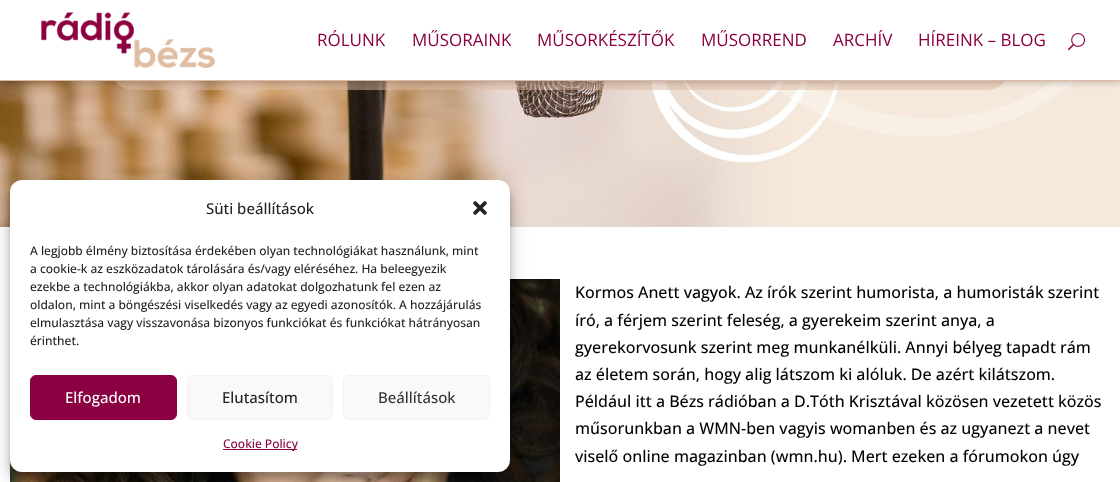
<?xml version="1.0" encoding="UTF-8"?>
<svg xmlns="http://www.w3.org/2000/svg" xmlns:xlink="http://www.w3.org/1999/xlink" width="1120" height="482">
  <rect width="100%" height="100%" fill="#ffffff" />
  <image x="0" y="81" width="1120" height="146" xlink:href="image4.png" />
  <image x="10" y="279" width="550" height="203" xlink:href="image5.png" />
  <rect x="10" y="186" width="500" height="292" rx="12" fill="#000000" fill-opacity="0.23" filter="blur(3px)" />
  <rect x="10" y="190" width="500" height="292" rx="12" fill="#000000" fill-opacity="0.19" filter="blur(10px)" />
  <rect x="10" y="180" width="500" height="292" rx="12" fill="#ffffff" />
  <image x="473" y="201" width="14" height="14" xlink:href="image1.png" />
  <rect x="30.5" y="375.5" width="146" height="44" rx="5.5" fill="#8b0041" stroke="#8b0041" />
  <rect x="187.5" y="375.5" width="145" height="44" rx="5.5" fill="#f9f9f9" stroke="#f2f2f2" />
  <rect x="343.5" y="375.5" width="146" height="44" rx="5.5" fill="#f9f9f9" stroke="#f2f2f2" />
  <rect x="223" y="449" width="74" height="1" fill="#8b0041" />
  <rect x="112" width="896" height="90" rx="20" fill="#debba5" fill-opacity="0.5" />
  <rect y="2" width="1120" height="81" fill="#000000" fill-opacity="0.2" filter="blur(3px)" />
  <rect width="1120" height="80" fill="#ffffff" />
  <rect y="80" width="1120" height="1" fill="#debba5" />
  <image x="41" y="12" width="174" height="56" xlink:href="image2.png" />
  <image x="1068" y="33" width="17" height="18" xlink:href="image3.png" />
  <text x="206" y="214" style="font-family: Open Sans; font-size: 15px; font-weight: 500; fill: #222222">Süti beállítások</text>
  <text x="30" y="255" style="font-family: Open Sans; font-size: 12px; font-weight: 500; fill: #222222">A legjobb élmény biztosítása érdekében olyan technológiákat használunk, mint</text>
  <text x="30" y="273" style="font-family: Open Sans; font-size: 12px; font-weight: 500; fill: #222222">a cookie-k az eszközadatok tárolására és/vagy eléréséhez. Ha beleegyezik</text>
  <text x="30" y="291" style="font-family: Open Sans; font-size: 12px; font-weight: 500; fill: #222222">ezekbe a technológiákba, akkor olyan adatokat dolgozhatunk fel ezen az</text>
  <text x="30" y="309" style="font-family: Open Sans; font-size: 12px; font-weight: 500; fill: #222222">oldalon, mint a böngészési viselkedés vagy az egyedi azonosítók. A hozzájárulás</text>
  <text x="30" y="327" style="font-family: Open Sans; font-size: 12px; font-weight: 500; fill: #222222">elmulasztása vagy visszavonása bizonyos funkciókat és funkciókat hátrányosan</text>
  <text x="30" y="345" style="font-family: Open Sans; font-size: 12px; font-weight: 500; fill: #222222">érinthet.</text>
  <text x="65" y="403" style="font-family: Open Sans; font-size: 15px; font-weight: 500; fill: #ffffff">Elfogadom</text>
  <text x="222" y="403" style="font-family: Open Sans; font-size: 15px; font-weight: 500; fill: #222222">Elutasítom</text>
  <text x="378" y="403" style="font-family: Open Sans; font-size: 15px; font-weight: 500; fill: #333333">Beállítások</text>
  <text x="223" y="448" style="font-family: Open Sans; font-size: 12px; font-weight: 500; fill: #8b0041">Cookie Policy</text>
  <text x="317" y="46" style="font-family: Open Sans; font-size: 17px; fill: #8b0041">RÓLUNK</text>
  <text x="412" y="46" style="font-family: Open Sans; font-size: 17px; fill: #8b0041">MŰSORAINK</text>
  <text x="537" y="46" style="font-family: Open Sans; font-size: 17px; fill: #8b0041">MŰSORKÉSZÍTŐK</text>
  <text x="701" y="46" style="font-family: Open Sans; font-size: 17px; fill: #8b0041">MŰSORREND</text>
  <text x="833" y="46" style="font-family: Open Sans; font-size: 17px; fill: #8b0041">ARCHÍV</text>
  <text x="918" y="46" style="font-family: Open Sans; font-size: 17px; fill: #8b0041">HÍREINK – BLOG</text>
  <text x="575" y="298" style="font-family: Open Sans; font-size: 16px; font-weight: 500; fill: #000000">Kormos Anett vagyok. Az írók szerint humorista, a humoristák szerint</text>
  <text x="575" y="326" style="font-family: Open Sans; font-size: 16px; font-weight: 500; fill: #000000">író, a férjem szerint feleség, a gyerekeim szerint anya, a</text>
  <text x="575" y="353" style="font-family: Open Sans; font-size: 16px; font-weight: 500; fill: #000000">gyerekorvosunk szerint meg munkanélküli. Annyi bélyeg tapadt rám</text>
  <text x="575" y="380" style="font-family: Open Sans; font-size: 16px; font-weight: 500; fill: #000000">az életem során, hogy alig látszom ki alóluk. De azért kilátszom.</text>
  <text x="575" y="407" style="font-family: Open Sans; font-size: 16px; font-weight: 500; fill: #000000">Például itt a Bézs rádióban a D.Tóth Krisztával közösen vezetett közös</text>
  <text x="575" y="434" style="font-family: Open Sans; font-size: 16px; font-weight: 500; fill: #000000">műsorunkban a WMN-ben vagyis womanben és az ugyanezt a nevet</text>
  <text x="575" y="462" style="font-family: Open Sans; font-size: 16px; font-weight: 500; fill: #000000">viselő online magazinban (wmn.hu). Mert ezeken a fórumokon úgy</text>
</svg>
